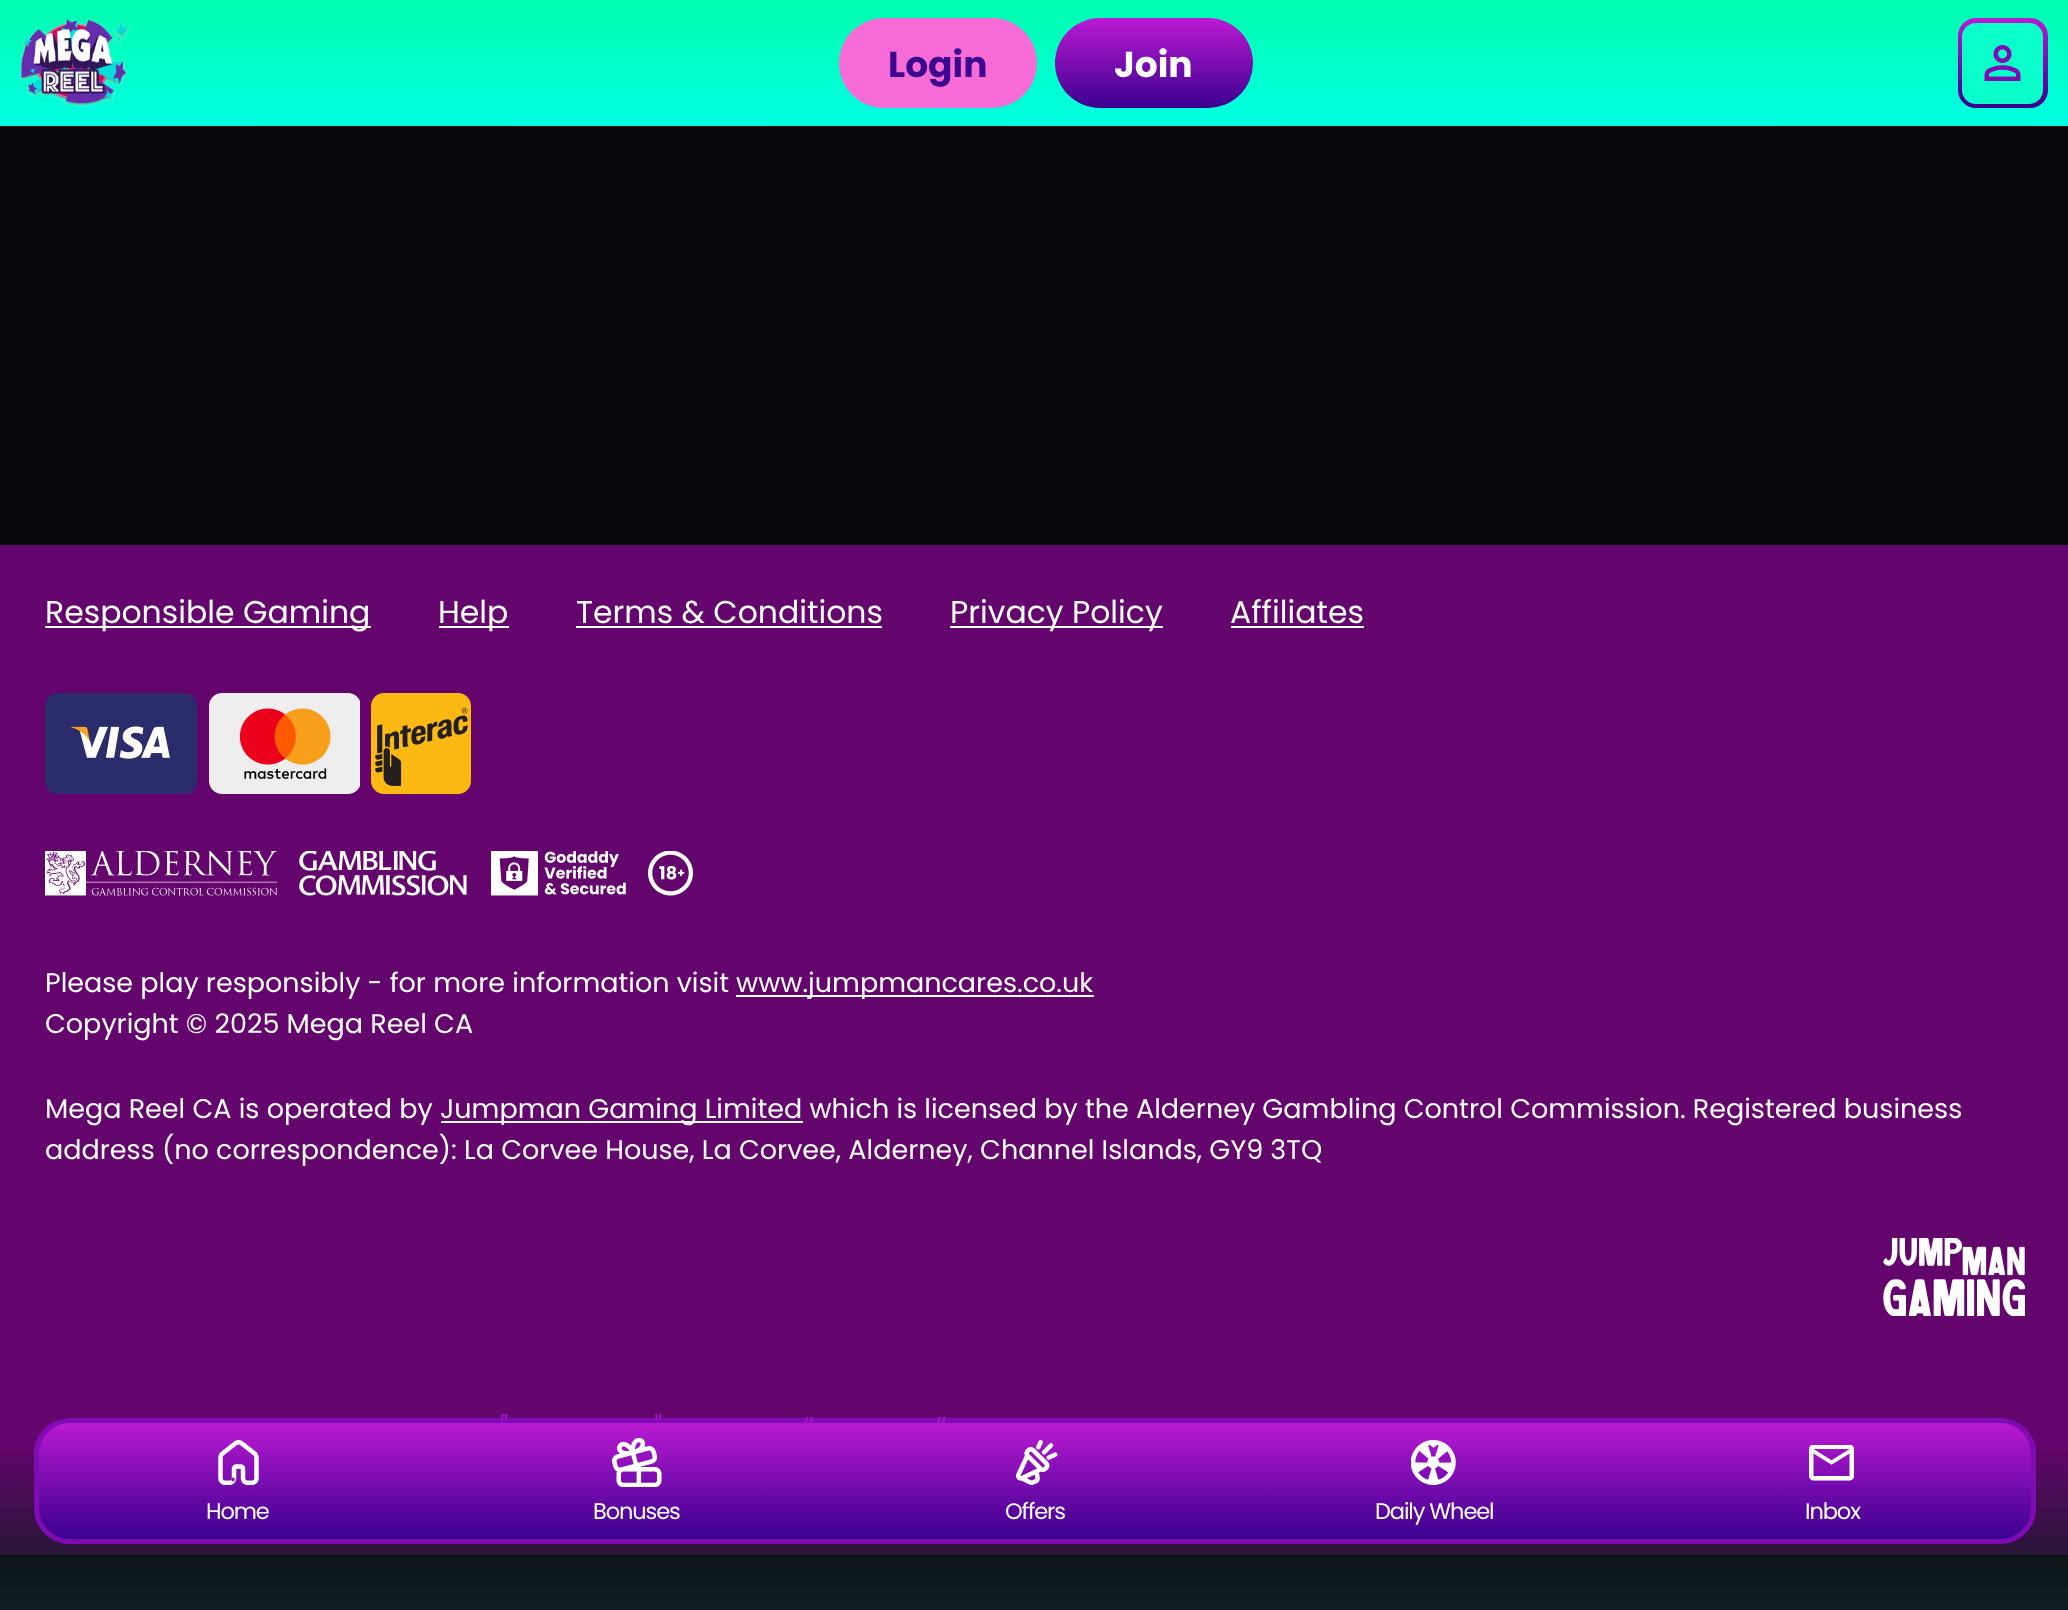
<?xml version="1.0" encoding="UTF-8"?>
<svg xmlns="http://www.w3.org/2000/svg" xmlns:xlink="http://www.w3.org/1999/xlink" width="2068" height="1610">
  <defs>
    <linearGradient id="g1" gradientUnits="userSpaceOnUse" x1="1035" y1="0" x2="1035" y2="126"><stop offset="0" stop-color="#00ffae" /><stop offset="1" stop-color="#00ffe3" /></linearGradient>
    <linearGradient id="g2" gradientUnits="userSpaceOnUse" x1="1154" y1="18" x2="1154" y2="108"><stop offset="0" stop-color="#bb1ad3" /><stop offset="1" stop-color="#3a008e" /></linearGradient>
    <linearGradient id="g3" gradientUnits="userSpaceOnUse" x1="2003" y1="18" x2="2003" y2="108"><stop offset="0" stop-color="#bb1ad3" /><stop offset="1" stop-color="#3a008e" /></linearGradient>
    <linearGradient id="g4" gradientUnits="userSpaceOnUse" x1="1035" y1="1418" x2="1035" y2="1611"><stop offset="0.12" stop-color="#0f1d21" stop-opacity="0" /><stop offset="0.96" stop-color="#0f1d21" /></linearGradient>
    <clipPath id="clip1"><rect x="34" y="1418" width="2002" height="126" rx="36" /></clipPath>
    <linearGradient id="g5" gradientUnits="userSpaceOnUse" x1="1035" y1="1422" x2="1035" y2="1539"><stop offset="0" stop-color="#bb1ad3" /><stop offset="1" stop-color="#3a008e" /></linearGradient>
  </defs>
  <rect width="100%" height="100%" fill="#000000" />
  <rect y="126" width="2068" height="419" fill="#06070b" />
  <rect width="2068" height="126" fill="url(#g1)" />
  <image x="19" y="18" width="113" height="89" xlink:href="image1.png" />
  <rect x="839" y="18" width="198" height="90" rx="45" fill="#f66bd5" />
  <rect x="1055" y="18" width="198" height="90" rx="45" fill="url(#g2)" />
  <rect x="1958" y="18" width="90" height="90" rx="18" fill="url(#g3)" />
  <rect x="1962" y="23" width="81" height="81" rx="14" fill="#0affcb" />
  <image x="1984" y="45" width="37" height="36" xlink:href="image2.png" />
  <rect y="545" width="2068" height="1010" fill="#64046d" />
  <rect x="45" y="626" width="326" height="2" fill="#ffffff" />
  <rect x="439" y="626" width="70" height="2" fill="#ffffff" />
  <rect x="576" y="626" width="306" height="2" fill="#ffffff" />
  <rect x="950" y="626" width="213" height="2" fill="#ffffff" />
  <rect x="1231" y="626" width="133" height="2" fill="#ffffff" />
  <image x="45" y="693" width="152" height="101" xlink:href="image3.png" />
  <image x="209" y="693" width="151" height="101" xlink:href="image4.png" />
  <image x="371" y="693" width="100" height="101" xlink:href="image5.png" />
  <image x="45" y="851" width="232" height="45" xlink:href="image6.png" />
  <image x="299" y="851" width="168" height="45" xlink:href="image7.png" />
  <image x="491" y="851" width="135" height="45" xlink:href="image8.png" />
  <image x="648" y="851" width="45" height="45" xlink:href="image9.png" />
  <rect x="736" y="995" width="358" height="2" fill="#ffffff" />
  <rect x="441" y="1121" width="362" height="2" fill="#ffffff" />
  <image x="1883" y="1238" width="142" height="78" xlink:href="image10.png" />
  <rect y="1445" width="2068" height="165" fill="url(#g4)" />
  <g clip-path="url(#clip1)">
    <rect x="34" y="1422" width="2002" height="117" fill="url(#g5)" />
  </g>
  <rect x="36.5" y="1420.5" width="1997" height="121" rx="33.5" fill="none" stroke="#7f0cb2" stroke-width="5" />
  <image x="218" y="1440" width="41" height="45" xlink:href="image11.png" />
  <image x="612" y="1438" width="50" height="49" xlink:href="image12.png" />
  <image x="1016" y="1440" width="42" height="45" xlink:href="image13.png" />
  <image x="1411" y="1440" width="45" height="45" xlink:href="image14.png" />
  <image x="1809" y="1445" width="45" height="36" xlink:href="image15.png" />
  <text x="888" y="77" style="font-family: Poppins; font-size: 36px; font-weight: bold; fill: #3b078e">Login</text>
  <text x="1114" y="77" style="font-family: Poppins; font-size: 36px; font-weight: bold; fill: #ffffff">Join</text>
  <text x="45" y="623" style="font-family: Poppins; font-size: 31.5px; fill: #ffffff">Responsible Gaming</text>
  <text x="438" y="623" style="font-family: Poppins; font-size: 31.5px; fill: #ffffff">Help</text>
  <text x="576" y="623" style="font-family: Poppins; font-size: 31.5px; fill: #ffffff">Terms &amp; Conditions</text>
  <text x="950" y="623" style="font-family: Poppins; font-size: 31.5px; fill: #ffffff">Privacy Policy</text>
  <text x="1230" y="623" style="font-family: Poppins; font-size: 31.5px; fill: #ffffff">Affiliates</text>
  <text x="45" y="992" style="font-family: Poppins; font-size: 27px; fill: #ffffff">Please play responsibly - for more information visit</text>
  <text x="736" y="992" style="font-family: Poppins; font-size: 27px; fill: #ffffff">www.jumpmancares.co.uk</text>
  <text x="45" y="1033" style="font-family: Poppins; font-size: 27px; fill: #ffffff">Copyright © 2025 Mega Reel CA</text>
  <text x="45" y="1118" style="font-family: Poppins; font-size: 27px; fill: #ffffff">Mega Reel CA is operated by</text>
  <text x="440" y="1118" style="font-family: Poppins; font-size: 27px; fill: #ffffff">Jumpman Gaming Limited which is licensed by the Alderney Gambling Control Commission. Registered business</text>
  <text x="45" y="1159" style="font-family: Poppins; font-size: 27px; fill: #ffffff">address (no correspondence): La Corvee House, La Corvee, Alderney, Channel Islands, GY9 3TQ</text>
  <text x="500" y="1437" style="font-family: Poppins; font-size: 29px; fill: #a515c5">"</text>
  <text x="654" y="1437" style="font-family: Poppins; font-size: 29px; fill: #a515c5">"</text>
  <text x="803" y="1437" style="font-family: Poppins; font-size: 29px; fill: #a515c5">“</text>
  <text x="936" y="1437" style="font-family: Poppins; font-size: 29px; fill: #a515c5">”</text>
  <text x="230" y="1481" style="font-family: Poppins; font-size: 29px; fill: #8919b9">.</text>
  <text x="206" y="1519" style="font-family: Poppins; font-size: 22.5px; letter-spacing: -1.1px; fill: #ffffff">Home</text>
  <text x="593" y="1519" style="font-family: Poppins; font-size: 22.5px; letter-spacing: -1.1px; fill: #ffffff">Bonuses</text>
  <text x="1005" y="1519" style="font-family: Poppins; font-size: 22.5px; letter-spacing: -1.1px; fill: #ffffff">Offers</text>
  <text x="1375" y="1519" style="font-family: Poppins; font-size: 22.5px; letter-spacing: -1.1px; fill: #ffffff">Daily Wheel</text>
  <text x="1805" y="1519" style="font-family: Poppins; font-size: 22.5px; letter-spacing: -1.1px; fill: #ffffff">Inbox</text>
</svg>
